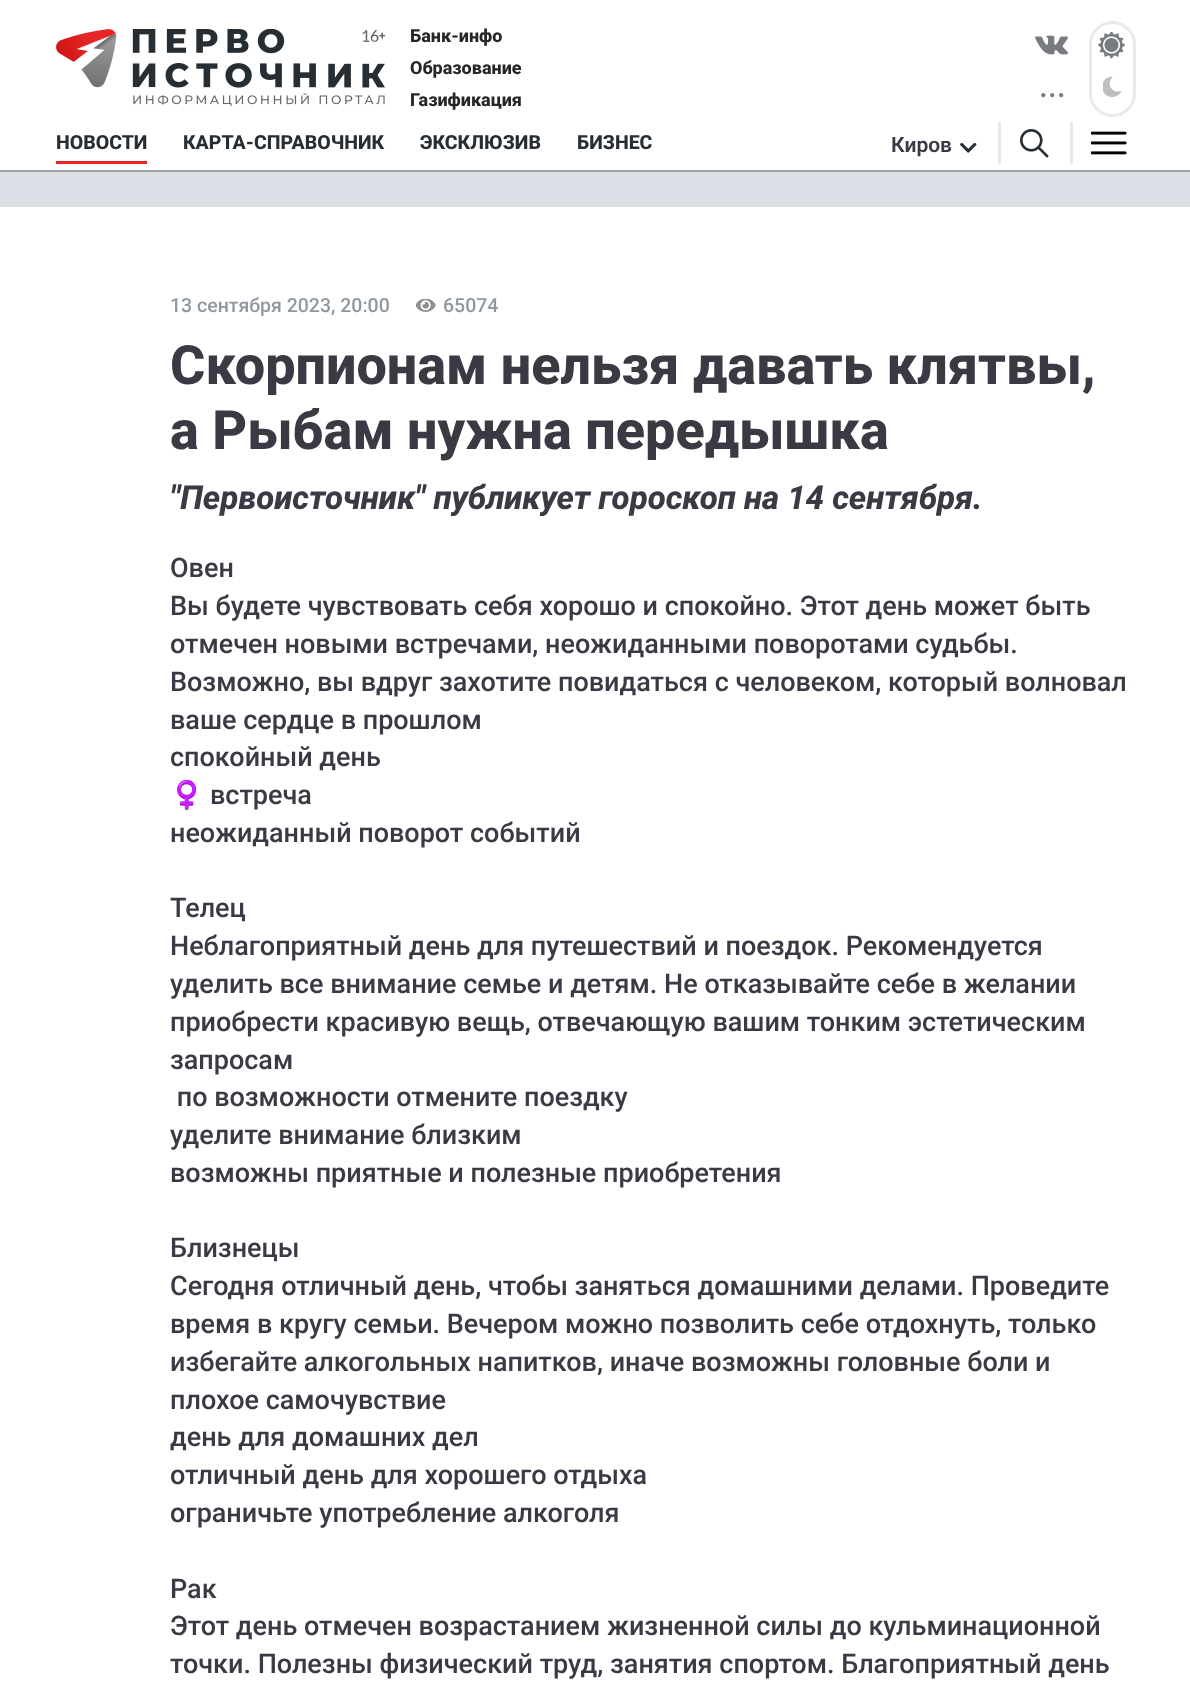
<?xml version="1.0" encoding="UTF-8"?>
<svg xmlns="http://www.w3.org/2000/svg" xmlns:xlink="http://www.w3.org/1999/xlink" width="1190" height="1681">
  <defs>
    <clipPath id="clip1"><rect x="170" y="549" width="957" height="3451" /></clipPath>
  </defs>
  <rect width="100%" height="100%" fill="#ffffff" />
  <rect y="170" width="1190" height="2" fill="#9aa2ab" />
  <image x="56" y="29" width="330" height="78" xlink:href="image1.png" />
  <image x="1035" y="35" width="33" height="20" xlink:href="image2.png" />
  <circle cx="1043.3" cy="95.2" r="2.1" fill="#787c80" />
  <circle cx="1052.2" cy="95.2" r="2.1" fill="#787c80" />
  <circle cx="1061.2" cy="95.2" r="2.1" fill="#787c80" />
  <rect x="1090.5" y="22.5" width="44" height="93" rx="22" fill="none" stroke="#e7e9ed" stroke-width="3" />
  <image x="1098" y="32" width="27" height="27" xlink:href="image3.png" />
  <image x="1103" y="76" width="19" height="21" xlink:href="image4.png" />
  <rect x="56" y="161" width="91" height="3" fill="#e62626" />
  <image x="960" y="143" width="17" height="10" xlink:href="image5.png" />
  <rect x="998" y="122" width="3" height="42" fill="#e6e9ed" />
  <image x="1020" y="129" width="29" height="29" xlink:href="image6.png" />
  <rect x="1070" y="122" width="3" height="42" fill="#e6e9ed" />
  <image x="1091" y="131" width="36" height="24" xlink:href="image7.png" />
  <rect y="172" width="1190" height="35" fill="#dcdfe5" />
  <image x="416" y="299" width="20" height="13" xlink:href="image8.png" />
  <text x="410" y="42" style="font-family: Roboto; font-size: 18px; font-weight: 800; fill: #262626">Банк-инфо</text>
  <text x="410" y="74" style="font-family: Roboto; font-size: 18px; font-weight: 800; fill: #262626">Образование</text>
  <text x="410" y="106" style="font-family: Roboto; font-size: 18px; font-weight: 800; fill: #262626">Газификация</text>
  <text x="56" y="149" style="font-family: Roboto; font-size: 19.5px; font-weight: 800; fill: #262d33">НОВОСТИ</text>
  <text x="183" y="149" style="font-family: Roboto; font-size: 19.5px; font-weight: 800; fill: #262d33">КАРТА-СПРАВОЧНИК</text>
  <text x="420" y="149" style="font-family: Roboto; font-size: 19.5px; font-weight: 800; fill: #262d33">ЭКСКЛЮЗИВ</text>
  <text x="577" y="149" style="font-family: Roboto; font-size: 19.5px; font-weight: 800; fill: #262d33">БИЗНЕС</text>
  <text x="891" y="152" style="font-family: Roboto; font-size: 21px; font-weight: 600; fill: #3a3944">Киров</text>
  <text x="170" y="312" style="font-family: Roboto; font-size: 19.5px; font-weight: 500; fill: #90989f">13 сентября 2023, 20:00</text>
  <text x="443" y="312" style="font-family: Roboto; font-size: 19.5px; font-weight: 500; fill: #90989f">65074</text>
  <text x="170" y="384" style="font-family: Roboto; font-size: 54px; font-weight: 800; fill: #3a3944">Скорпионам нельзя давать клятвы,</text>
  <text x="170" y="449" style="font-family: Roboto; font-size: 54px; font-weight: 800; fill: #3a3944">а Рыбам нужна передышка</text>
  <text x="170" y="509" style="font-family: Roboto; font-size: 33px; font-weight: 800; font-style: italic; fill: #3a3944">"Первоисточник" публикует гороскоп на 14 сентября.</text>
  <text x="170" y="577" style="font-family: Roboto; font-size: 27px; font-weight: 500; fill: #3a3944">Овен</text>
  <text x="170" y="615" style="font-family: Roboto; font-size: 27px; font-weight: 500; fill: #3a3944">Вы будете чувствовать себя хорошо и спокойно. Этот день может быть</text>
  <text x="170" y="653" style="font-family: Roboto; font-size: 27px; font-weight: 500; fill: #3a3944">отмечен новыми встречами, неожиданными поворотами судьбы.</text>
  <text x="170" y="691" style="font-family: Roboto; font-size: 27px; font-weight: 500; fill: #3a3944">Возможно, вы вдруг захотите повидаться с человеком, который волновал</text>
  <text x="170" y="729" style="font-family: Roboto; font-size: 27px; font-weight: 500; fill: #3a3944">ваше сердце в прошлом</text>
  <text x="170" y="766" style="font-family: Roboto; font-size: 27px; font-weight: 500; fill: #3a3944">спокойный день</text>
  <g clip-path="url(#clip1)">
    <text x="170" y="804" style="font-family: Noto Color Emoji; font-size: 27px; fill: #3a3944">♀️</text>
  </g>
  <text x="210" y="804" style="font-family: Roboto; font-size: 27px; font-weight: 500; fill: #3a3944">встреча</text>
  <text x="170" y="842" style="font-family: Roboto; font-size: 27px; font-weight: 500; fill: #3a3944">неожиданный поворот событий</text>
  <text x="170" y="917" style="font-family: Roboto; font-size: 27px; font-weight: 500; fill: #3a3944">Телец</text>
  <text x="170" y="955" style="font-family: Roboto; font-size: 27px; font-weight: 500; fill: #3a3944">Неблагоприятный день для путешествий и поездок. Рекомендуется</text>
  <text x="170" y="993" style="font-family: Roboto; font-size: 27px; font-weight: 500; fill: #3a3944">уделить все внимание семье и детям. Не отказывайте себе в желании</text>
  <text x="170" y="1031" style="font-family: Roboto; font-size: 27px; font-weight: 500; fill: #3a3944">приобрести красивую вещь, отвечающую вашим тонким эстетическим</text>
  <text x="170" y="1069" style="font-family: Roboto; font-size: 27px; font-weight: 500; fill: #3a3944">запросам</text>
  <text x="170" y="1106" style="font-family: Roboto; font-size: 27px; font-weight: 500; fill: #3a3944">️ по возможности отмените поездку</text>
  <text x="170" y="1144" style="font-family: Roboto; font-size: 27px; font-weight: 500; fill: #3a3944">уделите внимание близким</text>
  <text x="170" y="1182" style="font-family: Roboto; font-size: 27px; font-weight: 500; fill: #3a3944">возможны приятные и полезные приобретения</text>
  <text x="170" y="1257" style="font-family: Roboto; font-size: 27px; font-weight: 500; fill: #3a3944">Близнецы</text>
  <text x="170" y="1295" style="font-family: Roboto; font-size: 27px; font-weight: 500; fill: #3a3944">Сегодня отличный день, чтобы заняться домашними делами. Проведите</text>
  <text x="170" y="1333" style="font-family: Roboto; font-size: 27px; font-weight: 500; fill: #3a3944">время в кругу семьи. Вечером можно позволить себе отдохнуть, только</text>
  <text x="170" y="1371" style="font-family: Roboto; font-size: 27px; font-weight: 500; fill: #3a3944">избегайте алкогольных напитков, иначе возможны головные боли и</text>
  <text x="170" y="1409" style="font-family: Roboto; font-size: 27px; font-weight: 500; fill: #3a3944">плохое самочувствие</text>
  <text x="170" y="1446" style="font-family: Roboto; font-size: 27px; font-weight: 500; fill: #3a3944">день для домашних дел</text>
  <text x="170" y="1484" style="font-family: Roboto; font-size: 27px; font-weight: 500; fill: #3a3944">отличный день для хорошего отдыха</text>
  <text x="170" y="1522" style="font-family: Roboto; font-size: 27px; font-weight: 500; fill: #3a3944">ограничьте употребление алкоголя</text>
  <text x="170" y="1598" style="font-family: Roboto; font-size: 27px; font-weight: 500; fill: #3a3944">Рак</text>
  <text x="170" y="1635" style="font-family: Roboto; font-size: 27px; font-weight: 500; fill: #3a3944">Этот день отмечен возрастанием жизненной силы до кульминационной</text>
  <text x="170" y="1673" style="font-family: Roboto; font-size: 27px; font-weight: 500; fill: #3a3944">точки. Полезны физический труд, занятия спортом. Благоприятный день</text>
</svg>
